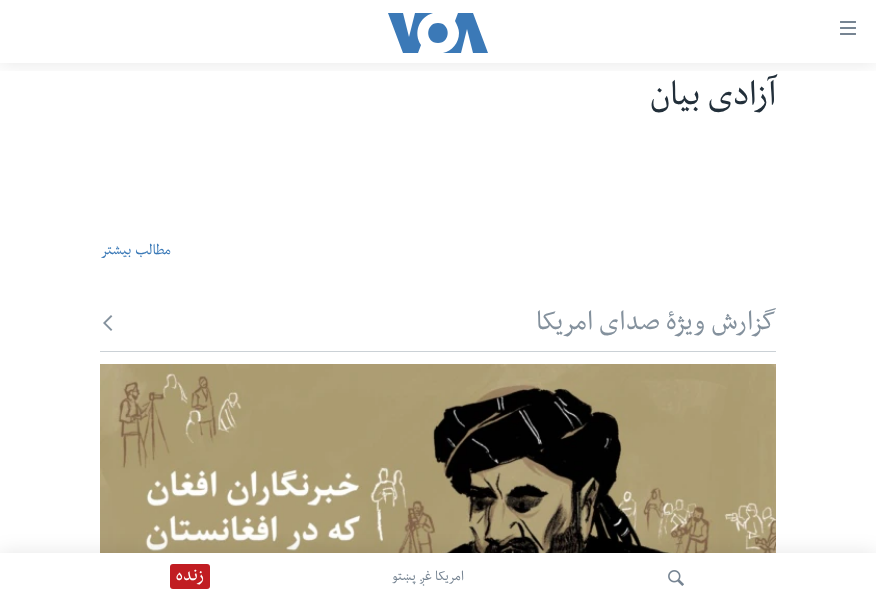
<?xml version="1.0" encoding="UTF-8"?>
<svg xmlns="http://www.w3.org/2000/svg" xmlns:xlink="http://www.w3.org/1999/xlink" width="876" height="603">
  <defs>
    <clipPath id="clip1"><rect x="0" y="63" width="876" height="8" /></clipPath>
  </defs>
  <rect width="100%" height="100%" fill="#ffffff" />
  <rect x="100" y="351" width="676" height="1" fill="#cbd1d6" />
  <image x="103" y="315" width="10" height="16" xlink:href="image1.png" />
  <image x="100" y="364" width="676" height="189" xlink:href="image2.png" />
  <g clip-path="url(#clip1)">
    <rect width="876" height="63" fill="#000000" fill-opacity="0.1" filter="blur(10px)" />
  </g>
  <image x="840" y="21" width="16" height="14" xlink:href="image3.png" />
  <path d="M 421 45 l -3 8 h -15 l -15 -40 h 15 l 6 24 l 6 -24 h 18 c -14 4 -20 20 -12 32 z m 17 -22 c -13 0 -13 20 0 20 c 13 0 13 -20 0 -20 z m 21 10 c 0 10 -7 18 -16 20 h 18 l 6 -24 l 6 24 h 15 l -15 -40 h -15 l -3 8 c 2 4 4 8 4 12 z" fill="#3b79b7" />
  <rect y="553" width="876" height="50" fill="#000000" fill-opacity="0.1" filter="blur(10px)" />
  <rect y="553" width="876" height="50" fill="#ffffff" />
  <image x="668" y="570" width="16" height="16" xlink:href="image4.png" />
  <rect x="170" y="564" width="40" height="25" rx="3" fill="#c11d22" />
  <text x="776" y="104" style="font-family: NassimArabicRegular; font-size: 40px; direction: rtl; fill: #222f3a">آزادی بیان</text>
  <text x="171" y="254" style="font-family: NassimArabicRegular; font-size: 17px; direction: rtl; fill: #3a79b7">مطالب بیشتر</text>
  <text x="776" y="329" style="font-family: NassimArabicRegular; font-size: 31.5px; direction: rtl; fill: #84919d">گزارش ویژۀ صدای امریکا</text>
  <text x="464" y="580" style="font-family: NassimArabicRegular; font-size: 16px; direction: rtl; fill: #768492">امریکا غږ پښتو</text>
  <text x="204" y="580" style="font-family: NassimArabicRegular; font-size: 21px; direction: rtl; fill: #ffffff">زنده</text>
</svg>
